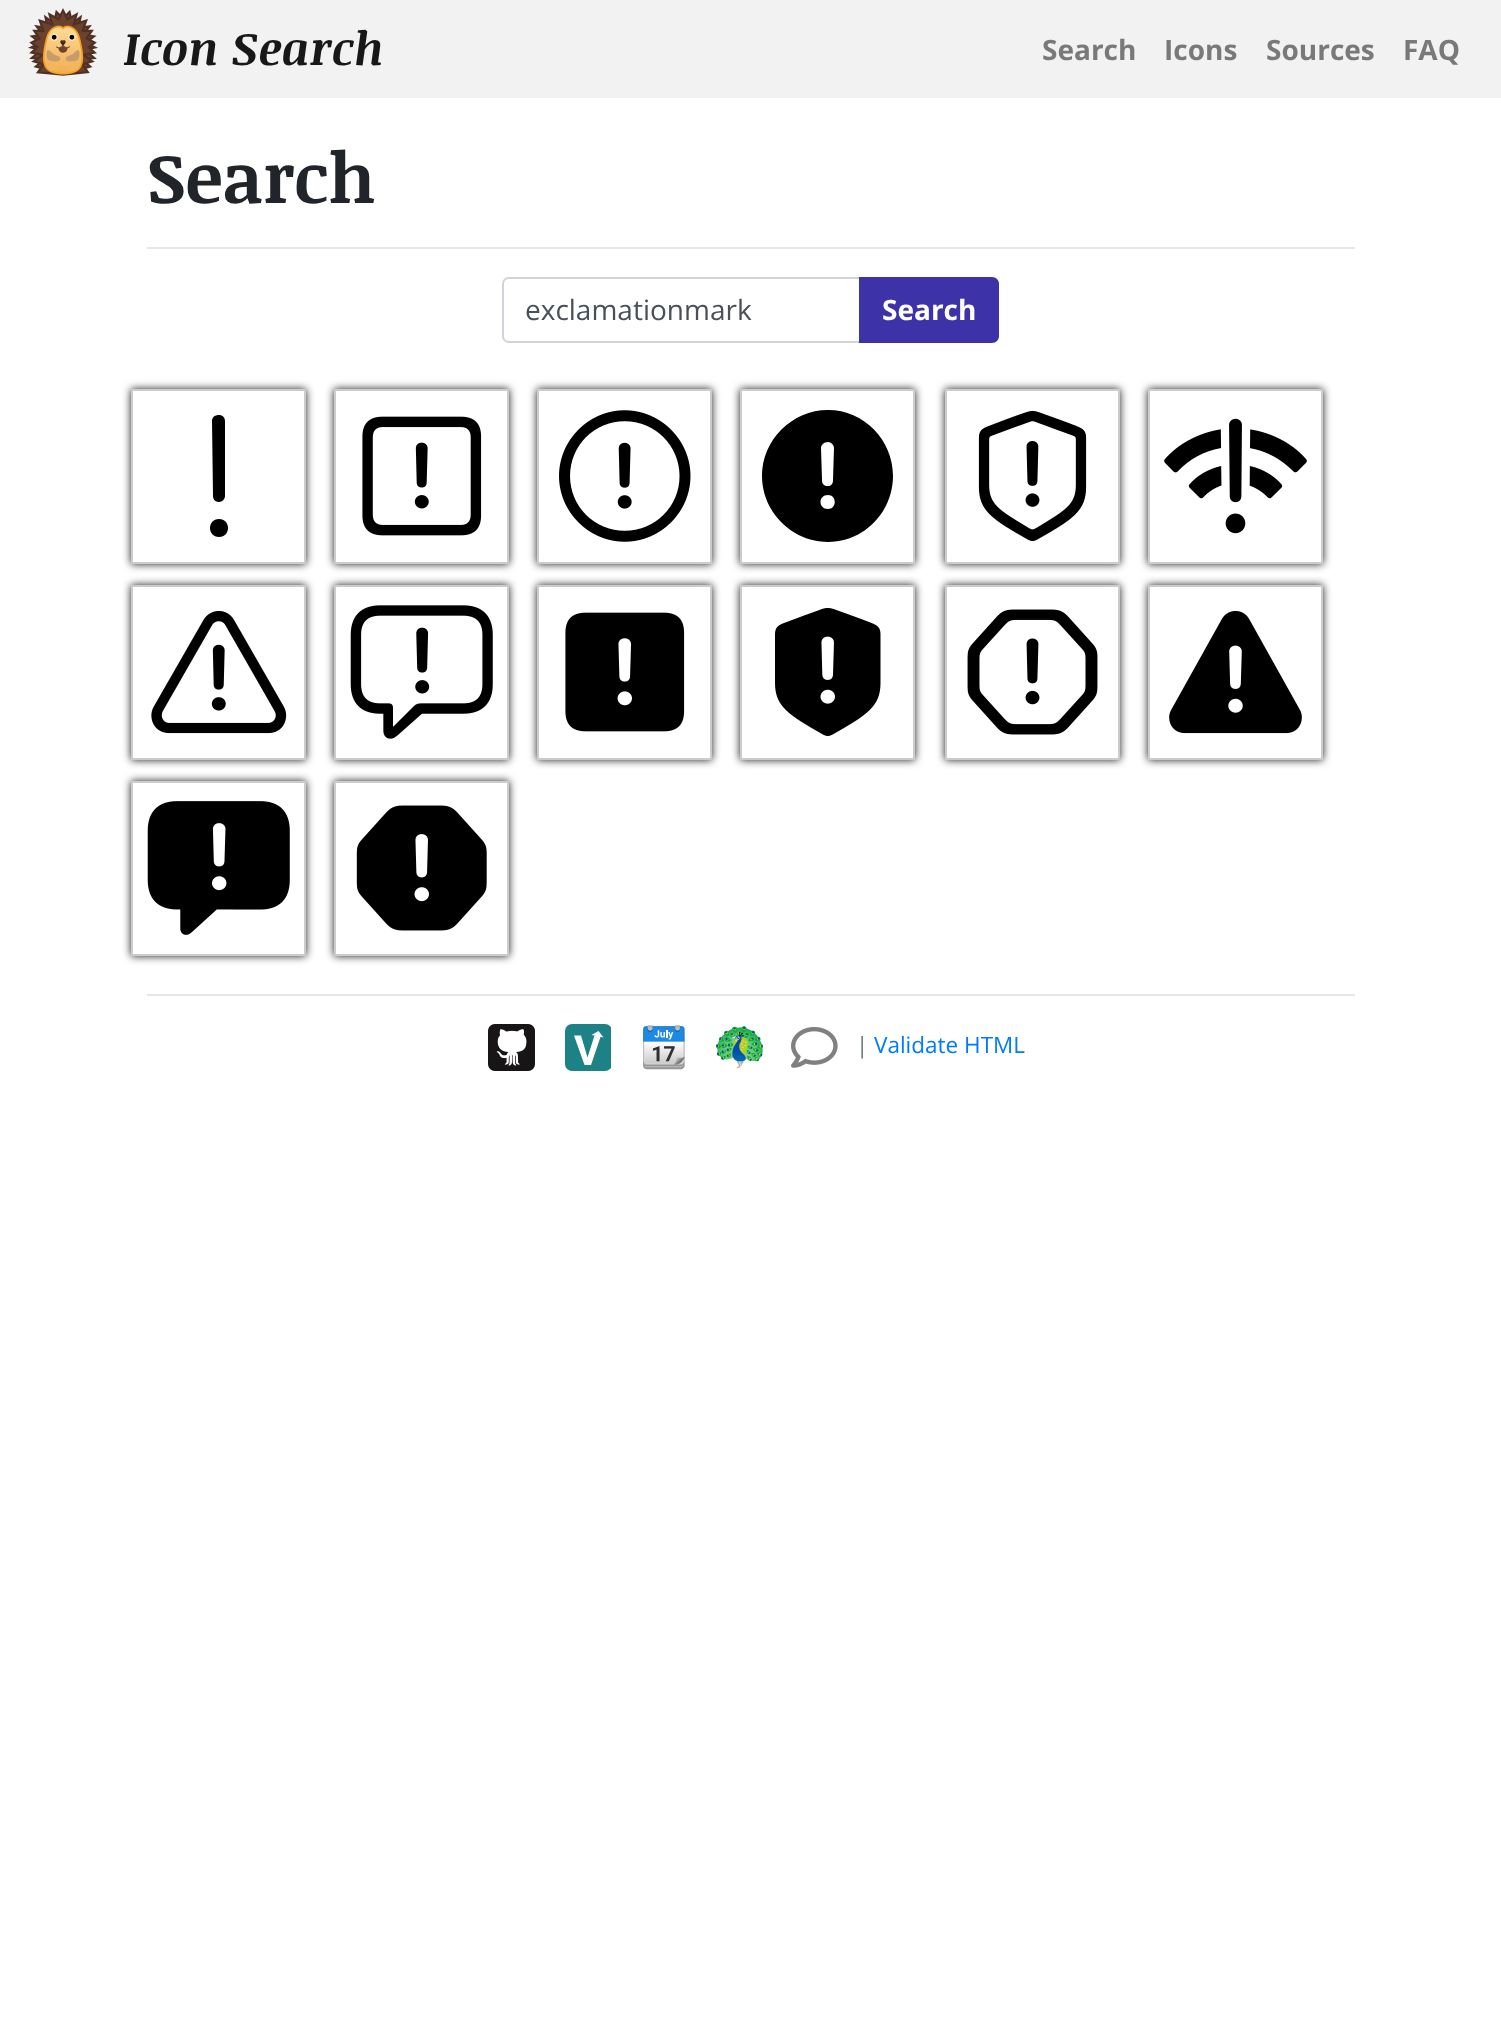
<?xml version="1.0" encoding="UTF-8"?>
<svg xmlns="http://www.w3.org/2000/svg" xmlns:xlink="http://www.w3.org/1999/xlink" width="1501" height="2026">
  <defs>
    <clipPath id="clip1"><path d="M 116 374 h 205 v 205 h -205 z m 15 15 h 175 v 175 h -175 z" clip-rule="evenodd" /></clipPath>
    <clipPath id="clip2"><path d="M 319 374 h 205 v 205 h -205 z m 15 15 h 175 v 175 h -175 z" clip-rule="evenodd" /></clipPath>
    <clipPath id="clip3"><path d="M 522 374 h 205 v 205 h -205 z m 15 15 h 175 v 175 h -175 z" clip-rule="evenodd" /></clipPath>
    <clipPath id="clip4"><path d="M 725 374 h 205 v 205 h -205 z m 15 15 h 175 v 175 h -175 z" clip-rule="evenodd" /></clipPath>
    <clipPath id="clip5"><path d="M 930 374 h 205 v 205 h -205 z m 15 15 h 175 v 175 h -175 z" clip-rule="evenodd" /></clipPath>
    <clipPath id="clip6"><path d="M 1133 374 h 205 v 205 h -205 z m 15 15 h 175 v 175 h -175 z" clip-rule="evenodd" /></clipPath>
    <clipPath id="clip7"><path d="M 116 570 h 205 v 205 h -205 z m 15 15 h 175 v 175 h -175 z" clip-rule="evenodd" /></clipPath>
    <clipPath id="clip8"><path d="M 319 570 h 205 v 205 h -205 z m 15 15 h 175 v 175 h -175 z" clip-rule="evenodd" /></clipPath>
    <clipPath id="clip9"><path d="M 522 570 h 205 v 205 h -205 z m 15 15 h 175 v 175 h -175 z" clip-rule="evenodd" /></clipPath>
    <clipPath id="clip10"><path d="M 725 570 h 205 v 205 h -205 z m 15 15 h 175 v 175 h -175 z" clip-rule="evenodd" /></clipPath>
    <clipPath id="clip11"><path d="M 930 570 h 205 v 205 h -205 z m 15 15 h 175 v 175 h -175 z" clip-rule="evenodd" /></clipPath>
    <clipPath id="clip12"><path d="M 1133 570 h 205 v 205 h -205 z m 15 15 h 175 v 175 h -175 z" clip-rule="evenodd" /></clipPath>
    <clipPath id="clip13"><path d="M 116 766 h 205 v 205 h -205 z m 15 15 h 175 v 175 h -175 z" clip-rule="evenodd" /></clipPath>
    <clipPath id="clip14"><path d="M 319 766 h 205 v 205 h -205 z m 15 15 h 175 v 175 h -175 z" clip-rule="evenodd" /></clipPath>
    <clipPath id="clip15"><rect x="565" y="1024" width="46" height="47" /></clipPath>
  </defs>
  <rect width="100%" height="100%" fill="#ffffff" />
  <rect width="1501" height="98" fill="#f2f2f2" />
  <image x="28" y="8" width="70" height="68" xlink:href="image1.png" />
  <rect x="147" y="247" width="1208" height="2" fill="#e6e6e6" />
  <path d="M 509 278 h 351 v 64 h -351 c -3.5 0 -6 -2.5 -6 -6 v -52 c 0 -3.5 2.5 -6 6 -6 z" fill="none" stroke="#ced4da" stroke-width="2" />
  <path d="M 859 277 h 133 c 4 0 7 3 7 7 v 52 c 0 4 -3 7 -7 7 h -133 z" fill="#3e32a8" />
  <g clip-path="url(#clip1)">
    <rect x="131" y="389" width="175" height="175" fill="#1d1d1d" filter="blur(4.5px)" />
  </g>
  <g clip-path="url(#clip2)">
    <rect x="334" y="389" width="175" height="175" fill="#1d1d1d" filter="blur(4.5px)" />
  </g>
  <g clip-path="url(#clip3)">
    <rect x="537" y="389" width="175" height="175" fill="#1d1d1d" filter="blur(4.5px)" />
  </g>
  <g clip-path="url(#clip4)">
    <rect x="740" y="389" width="175" height="175" fill="#1d1d1d" filter="blur(4.5px)" />
  </g>
  <g clip-path="url(#clip5)">
    <rect x="945" y="389" width="175" height="175" fill="#1d1d1d" filter="blur(4.5px)" />
  </g>
  <g clip-path="url(#clip6)">
    <rect x="1148" y="389" width="175" height="175" fill="#1d1d1d" filter="blur(4.5px)" />
  </g>
  <rect x="132" y="390" width="173" height="173" fill="none" stroke="#cccccc" stroke-width="2" />
  <rect x="335" y="390" width="173" height="173" fill="none" stroke="#cccccc" stroke-width="2" />
  <rect x="538" y="390" width="173" height="173" fill="none" stroke="#cccccc" stroke-width="2" />
  <rect x="741" y="390" width="173" height="173" fill="none" stroke="#cccccc" stroke-width="2" />
  <rect x="946" y="390" width="173" height="173" fill="none" stroke="#cccccc" stroke-width="2" />
  <rect x="1149" y="390" width="173" height="173" fill="none" stroke="#cccccc" stroke-width="2" />
  <path d="M 219 502 c 3 0 6 -3 6 -6 v -75 c 0 -4 -3 -6 -6 -6 c -4 0 -7 2 -7 6 l 1 75 c 0 3 2 6 6 6 z m 0 35 c 12 0 12 -18 0 -18 c -12 0 -12 18 0 18 z" fill="#000000" />
  <image x="362" y="416" width="120" height="120" xlink:href="image2.png" />
  <image x="559" y="410" width="132" height="132" xlink:href="image3.png" />
  <path d="M 828 542 c 36 0 65 -30 65 -66 c 0 -36 -29 -66 -65 -66 c -36 0 -66 30 -66 66 c 0 36 30 66 66 66 z m 0 -56 c -4 0 -6 -2 -6 -6 l -1 -32 c 0 -3 3 -6 7 -6 c 3 0 6 3 6 6 l -1 32 c 0 4 -2 6 -5 6 z m 0 23 c -10 0 -10 -14 0 -14 c 9 0 9 14 0 14 z" fill="#000000" />
  <image x="978" y="410" width="109" height="132" xlink:href="image4.png" />
  <image x="1164" y="418" width="143" height="116" xlink:href="image5.png" />
  <g clip-path="url(#clip7)">
    <rect x="131" y="585" width="175" height="175" fill="#1d1d1d" filter="blur(4.5px)" />
  </g>
  <g clip-path="url(#clip8)">
    <rect x="334" y="585" width="175" height="175" fill="#1d1d1d" filter="blur(4.5px)" />
  </g>
  <g clip-path="url(#clip9)">
    <rect x="537" y="585" width="175" height="175" fill="#1d1d1d" filter="blur(4.5px)" />
  </g>
  <g clip-path="url(#clip10)">
    <rect x="740" y="585" width="175" height="175" fill="#1d1d1d" filter="blur(4.5px)" />
  </g>
  <g clip-path="url(#clip11)">
    <rect x="945" y="585" width="175" height="175" fill="#1d1d1d" filter="blur(4.5px)" />
  </g>
  <g clip-path="url(#clip12)">
    <rect x="1148" y="585" width="175" height="175" fill="#1d1d1d" filter="blur(4.5px)" />
  </g>
  <rect x="132" y="586" width="173" height="173" fill="none" stroke="#cccccc" stroke-width="2" />
  <rect x="335" y="586" width="173" height="173" fill="none" stroke="#cccccc" stroke-width="2" />
  <rect x="538" y="586" width="173" height="173" fill="none" stroke="#cccccc" stroke-width="2" />
  <rect x="741" y="586" width="173" height="173" fill="none" stroke="#cccccc" stroke-width="2" />
  <rect x="946" y="586" width="173" height="173" fill="none" stroke="#cccccc" stroke-width="2" />
  <rect x="1149" y="586" width="173" height="173" fill="none" stroke="#cccccc" stroke-width="2" />
  <image x="151" y="610" width="136" height="124" xlink:href="image6.png" />
  <image x="350" y="605" width="143" height="134" xlink:href="image7.png" />
  <image x="565" y="612" width="120" height="120" xlink:href="image8.png" />
  <image x="775" y="607" width="106" height="130" xlink:href="image9.png" />
  <image x="967" y="609" width="131" height="126" xlink:href="image10.png" />
  <image x="1169" y="610" width="133" height="124" xlink:href="image11.png" />
  <g clip-path="url(#clip13)">
    <rect x="131" y="781" width="175" height="175" fill="#1d1d1d" filter="blur(4.5px)" />
  </g>
  <g clip-path="url(#clip14)">
    <rect x="334" y="781" width="175" height="175" fill="#1d1d1d" filter="blur(4.5px)" />
  </g>
  <rect x="132" y="782" width="173" height="173" fill="none" stroke="#cccccc" stroke-width="2" />
  <rect x="335" y="782" width="173" height="173" fill="none" stroke="#cccccc" stroke-width="2" />
  <image x="147" y="801" width="143" height="134" xlink:href="image12.png" />
  <image x="356" y="805" width="131" height="126" xlink:href="image13.png" />
  <rect x="147" y="994" width="1208" height="2" fill="#e6e6e6" />
  <image x="488" y="1024" width="47" height="47" xlink:href="image14.png" />
  <g clip-path="url(#clip15)">
    <rect x="565" y="1024" width="47" height="47" rx="7" fill="#1d8286" />
  </g>
  <image x="643" y="1025" width="42" height="45" xlink:href="image15.png" />
  <image x="716" y="1026" width="47" height="43" xlink:href="image16.png" />
  <image x="791" y="1027" width="47" height="41" xlink:href="image17.png" />
  <path d="M 587.5 1057.5 l 7 -22 h 6.5 l -10 29.5 h -6.5 l -10.5 -29.5 h 7 l 6.5 22" fill="#ffffff" />
  <path d="M 591.5 1035 l 12 2.5 l -5 -6.5 z" fill="#ffffff" />
  <text x="124" y="65" style="font-family: Noticia Text; font-size: 46.25px; font-weight: bold; font-style: italic; fill: #181818">Icon Search</text>
  <text x="1042" y="60" style="font-family: Open Sans; font-size: 28px; font-weight: bold; fill: #797979">Search</text>
  <text x="1164" y="60" style="font-family: Open Sans; font-size: 28px; font-weight: bold; fill: #797979">Icons</text>
  <text x="1266" y="60" style="font-family: Open Sans; font-size: 28px; font-weight: bold; fill: #797979">Sources</text>
  <text x="1403" y="60" style="font-family: Open Sans; font-size: 28px; font-weight: bold; fill: #797979">FAQ</text>
  <text x="147" y="203" style="font-family: Noticia Text; font-size: 70px; font-weight: bold; fill: #212529">Search</text>
  <text x="525" y="320" style="font-family: Open Sans; font-size: 28px; fill: #495057">exclamationmark</text>
  <text x="882" y="320" style="font-family: Open Sans; font-size: 28px; font-weight: bold; fill: #ffffff">Search</text>
  <text x="856" y="1053" style="font-family: Open Sans; font-size: 22.5px; fill: #6c757d">|</text>
  <text x="874" y="1053" style="font-family: Open Sans; font-size: 22.5px; fill: #007bff">Validate HTML</text>
</svg>
